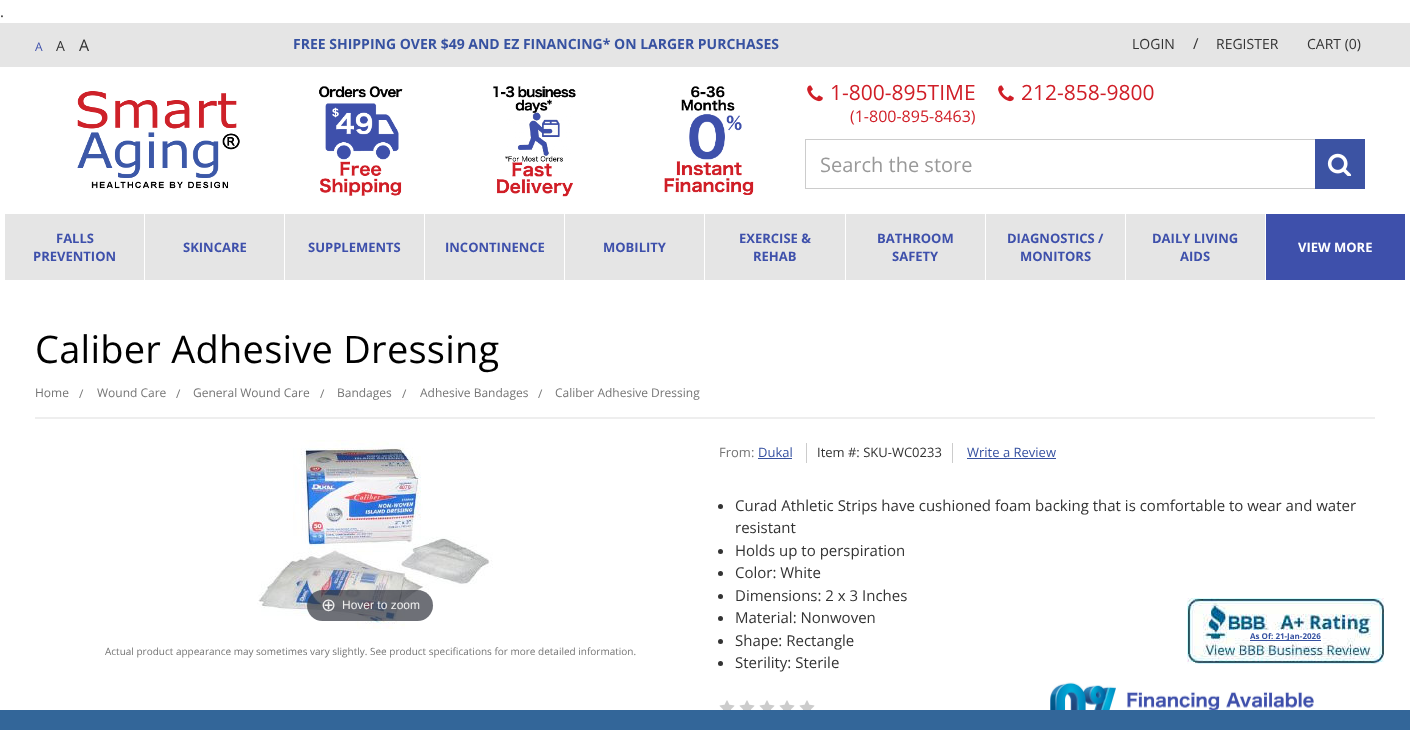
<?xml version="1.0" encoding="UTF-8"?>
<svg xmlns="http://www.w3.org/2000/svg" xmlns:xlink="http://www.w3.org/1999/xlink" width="1410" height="730">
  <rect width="100%" height="100%" fill="#ffffff" />
  <rect y="23" width="1410" height="44" fill="#e5e5e5" />
  <image x="77" y="91" width="163" height="98" xlink:href="image1.png" />
  <image x="319" y="86" width="84" height="110" xlink:href="image2.png" />
  <image x="493" y="86" width="83" height="111" xlink:href="image3.png" />
  <image x="664" y="86" width="90" height="109" xlink:href="image4.png" />
  <image x="807" y="85" width="16" height="17" xlink:href="image5.png" />
  <image x="998" y="85" width="16" height="17" xlink:href="image5.png" />
  <rect x="805" y="139" width="510" height="1" fill="#cccccc" />
  <rect x="805" y="188" width="510" height="1" fill="#cccccc" />
  <rect x="805" y="139" width="1" height="50" fill="#cccccc" />
  <rect x="1315" y="139" width="50" height="50" fill="#3c53a3" />
  <image x="1327" y="153" width="25" height="23" xlink:href="image6.png" />
  <rect x="5" y="214" width="1260" height="66" fill="#e5e5e5" />
  <rect x="144" y="214" width="1" height="66" fill="#ffffff" />
  <rect x="284" y="214" width="1" height="66" fill="#ffffff" />
  <rect x="424" y="214" width="1" height="66" fill="#ffffff" />
  <rect x="564" y="214" width="1" height="66" fill="#ffffff" />
  <rect x="704" y="214" width="1" height="66" fill="#ffffff" />
  <rect x="845" y="214" width="1" height="66" fill="#ffffff" />
  <rect x="985" y="214" width="1" height="66" fill="#ffffff" />
  <rect x="1125" y="214" width="1" height="66" fill="#ffffff" />
  <rect x="1266" y="214" width="139" height="66" fill="#3e50ab" />
  <rect x="35" y="417" width="1340" height="2" fill="#eeeeee" />
  <image x="257" y="440" width="236" height="189" xlink:href="image7.png" />
  <rect x="307" y="590" width="126" height="31" rx="15.5" fill="#31333d" fill-opacity="0.7" />
  <rect x="758" y="458" width="34" height="1" fill="#3752a1" />
  <rect x="952" y="443" width="1" height="20" fill="#cccccc" />
  <rect x="806" y="443" width="1" height="20" fill="#cccccc" />
  <rect x="967" y="458" width="89" height="1" fill="#3752a1" />
  <circle cx="720.5" cy="506.5" r="2.5" fill="#333333" />
  <circle cx="720.5" cy="551.5" r="2.5" fill="#333333" />
  <circle cx="720.5" cy="573.5" r="2.5" fill="#333333" />
  <circle cx="720.5" cy="596.5" r="2.5" fill="#333333" />
  <circle cx="720.5" cy="618.5" r="2.5" fill="#333333" />
  <circle cx="720.5" cy="641.5" r="2.5" fill="#333333" />
  <circle cx="720.5" cy="663.5" r="2.5" fill="#333333" />
  <image x="719" y="700" width="16" height="10" xlink:href="image8.png" />
  <image x="739" y="700" width="16" height="10" xlink:href="image8.png" />
  <image x="759" y="700" width="16" height="10" xlink:href="image8.png" />
  <image x="779" y="700" width="16" height="10" xlink:href="image8.png" />
  <image x="799" y="700" width="16" height="10" xlink:href="image8.png" />
  <image x="1050" y="682" width="270" height="28" xlink:href="image9.png" />
  <image x="1187" y="598" width="197" height="66" xlink:href="image10.png" />
  <rect x="1250" y="640" width="71" height="1" fill="#3752a1" />
  <rect y="710" width="1410" height="20" fill="#336699" />
  <text x="0" y="17" style="font-family: Open Sans; font-size: 15px; fill: #333333">.</text>
  <text x="35" y="51" style="font-family: Open Sans; font-size: 12px; fill: #3e50ab">A</text>
  <text x="56" y="51" style="font-family: Open Sans; font-size: 14px; fill: #333333">A</text>
  <text x="79" y="51" style="font-family: Open Sans; font-size: 16px; fill: #333333">A</text>
  <text x="293" y="49" style="font-family: Open Sans; font-size: 14px; font-weight: bold; fill: #3752a1">FREE SHIPPING OVER $49 AND EZ FINANCING* ON LARGER PURCHASES</text>
  <text x="1132" y="49" style="font-family: Open Sans; font-size: 14px; fill: #333333">LOGIN</text>
  <text x="1193" y="49" style="font-family: Open Sans; font-size: 15px; fill: #333333">/</text>
  <text x="1216" y="49" style="font-family: Open Sans; font-size: 14px; fill: #333333">REGISTER</text>
  <text x="1307" y="49" style="font-family: Open Sans; font-size: 14px; fill: #333333">CART (0)</text>
  <text x="830" y="100" style="font-family: Open Sans; font-size: 21px; fill: #d01e27">1-800-895TIME</text>
  <text x="850" y="122" style="font-family: Open Sans; font-size: 16px; fill: #d01e27">(1-800-895-8463)</text>
  <text x="1021" y="100" style="font-family: Open Sans; font-size: 21px; fill: #d01e27">212-858-9800</text>
  <text x="820" y="172" style="font-family: Open Sans; font-size: 20px; fill: #999999">Search the store</text>
  <text x="56" y="243" style="font-family: Open Sans; font-size: 13px; font-weight: bold; fill: #3e50ab">FALLS</text>
  <text x="33" y="261" style="font-family: Open Sans; font-size: 13px; font-weight: bold; fill: #3e50ab">PREVENTION</text>
  <text x="183" y="252" style="font-family: Open Sans; font-size: 13px; font-weight: bold; fill: #3e50ab">SKINCARE</text>
  <text x="308" y="252" style="font-family: Open Sans; font-size: 13px; font-weight: bold; fill: #3e50ab">SUPPLEMENTS</text>
  <text x="445" y="252" style="font-family: Open Sans; font-size: 13px; font-weight: bold; fill: #3e50ab">INCONTINENCE</text>
  <text x="603" y="252" style="font-family: Open Sans; font-size: 13px; font-weight: bold; fill: #3e50ab">MOBILITY</text>
  <text x="739" y="243" style="font-family: Open Sans; font-size: 13px; font-weight: bold; fill: #3e50ab">EXERCISE &amp;</text>
  <text x="753" y="261" style="font-family: Open Sans; font-size: 13px; font-weight: bold; fill: #3e50ab">REHAB</text>
  <text x="877" y="243" style="font-family: Open Sans; font-size: 13px; font-weight: bold; fill: #3e50ab">BATHROOM</text>
  <text x="892" y="261" style="font-family: Open Sans; font-size: 13px; font-weight: bold; fill: #3e50ab">SAFETY</text>
  <text x="1007" y="243" style="font-family: Open Sans; font-size: 13px; font-weight: bold; fill: #3e50ab">DIAGNOSTICS /</text>
  <text x="1020" y="261" style="font-family: Open Sans; font-size: 13px; font-weight: bold; fill: #3e50ab">MONITORS</text>
  <text x="1152" y="243" style="font-family: Open Sans; font-size: 13px; font-weight: bold; fill: #3e50ab">DAILY LIVING</text>
  <text x="1180" y="261" style="font-family: Open Sans; font-size: 13px; font-weight: bold; fill: #3e50ab">AIDS</text>
  <text x="1298" y="252" style="font-family: Open Sans; font-size: 13px; font-weight: bold; fill: #ffffff">VIEW MORE</text>
  <text x="35" y="363" style="font-family: Open Sans; font-size: 38px; letter-spacing: 0.25px; fill: #000000">Caliber Adhesive Dressing</text>
  <text x="35" y="397" style="font-family: Open Sans; font-size: 12px; fill: #757575">Home</text>
  <text x="79" y="398" style="font-family: Open Sans; font-size: 12px; fill: #757575">/</text>
  <text x="97" y="397" style="font-family: Open Sans; font-size: 12px; fill: #757575">Wound Care</text>
  <text x="176" y="398" style="font-family: Open Sans; font-size: 12px; fill: #757575">/</text>
  <text x="193" y="397" style="font-family: Open Sans; font-size: 12px; fill: #757575">General Wound Care</text>
  <text x="320" y="398" style="font-family: Open Sans; font-size: 12px; fill: #757575">/</text>
  <text x="337" y="397" style="font-family: Open Sans; font-size: 12px; fill: #757575">Bandages</text>
  <text x="402" y="398" style="font-family: Open Sans; font-size: 12px; fill: #757575">/</text>
  <text x="420" y="397" style="font-family: Open Sans; font-size: 12px; fill: #757575">Adhesive Bandages</text>
  <text x="538" y="398" style="font-family: Open Sans; font-size: 12px; fill: #757575">/</text>
  <text x="555" y="397" style="font-family: Open Sans; font-size: 12px; fill: #757575">Caliber Adhesive Dressing</text>
  <text x="321" y="611" style="font-family: DejaVu Sans; font-size: 18px; fill: #eeeeee">⊕</text>
  <text x="342" y="609" style="font-family: Liberation Sans; font-size: 12px; fill: #eeeeee">Hover to zoom</text>
  <text x="105" y="655" style="font-family: Open Sans; font-size: 10px; fill: #757575">Actual product appearance may sometimes vary slightly. See product specifications for more detailed information.</text>
  <text x="719" y="457" style="font-family: Open Sans; font-size: 13px; fill: #757575">From:</text>
  <text x="758" y="457" style="font-family: Open Sans; font-size: 13px; fill: #3752a1">Dukal</text>
  <text x="817" y="457" style="font-family: Open Sans; font-size: 13px; fill: #333333">Item #: SKU-WC0233</text>
  <text x="967" y="457" style="font-family: Open Sans; font-size: 13px; fill: #3752a1">Write a Review</text>
  <text x="735" y="511" style="font-family: Open Sans; font-size: 15px; fill: #333333">Curad Athletic Strips have cushioned foam backing that is comfortable to wear and water</text>
  <text x="735" y="533" style="font-family: Open Sans; font-size: 15px; fill: #333333">resistant</text>
  <text x="735" y="556" style="font-family: Open Sans; font-size: 15px; fill: #333333">Holds up to perspiration</text>
  <text x="735" y="578" style="font-family: Open Sans; font-size: 15px; fill: #333333">Color: White</text>
  <text x="735" y="601" style="font-family: Open Sans; font-size: 15px; fill: #333333">Dimensions: 2 x 3 Inches</text>
  <text x="735" y="623" style="font-family: Open Sans; font-size: 15px; fill: #333333">Material: Nonwoven</text>
  <text x="735" y="646" style="font-family: Open Sans; font-size: 15px; fill: #333333">Shape: Rectangle</text>
  <text x="735" y="668" style="font-family: Open Sans; font-size: 15px; fill: #333333">Sterility: Sterile</text>
  <text x="1250" y="639" style="font-family: Open Sans; font-size: 8px; font-weight: bold; fill: #3752a1">As Of: 21-Jan-2026</text>
</svg>
